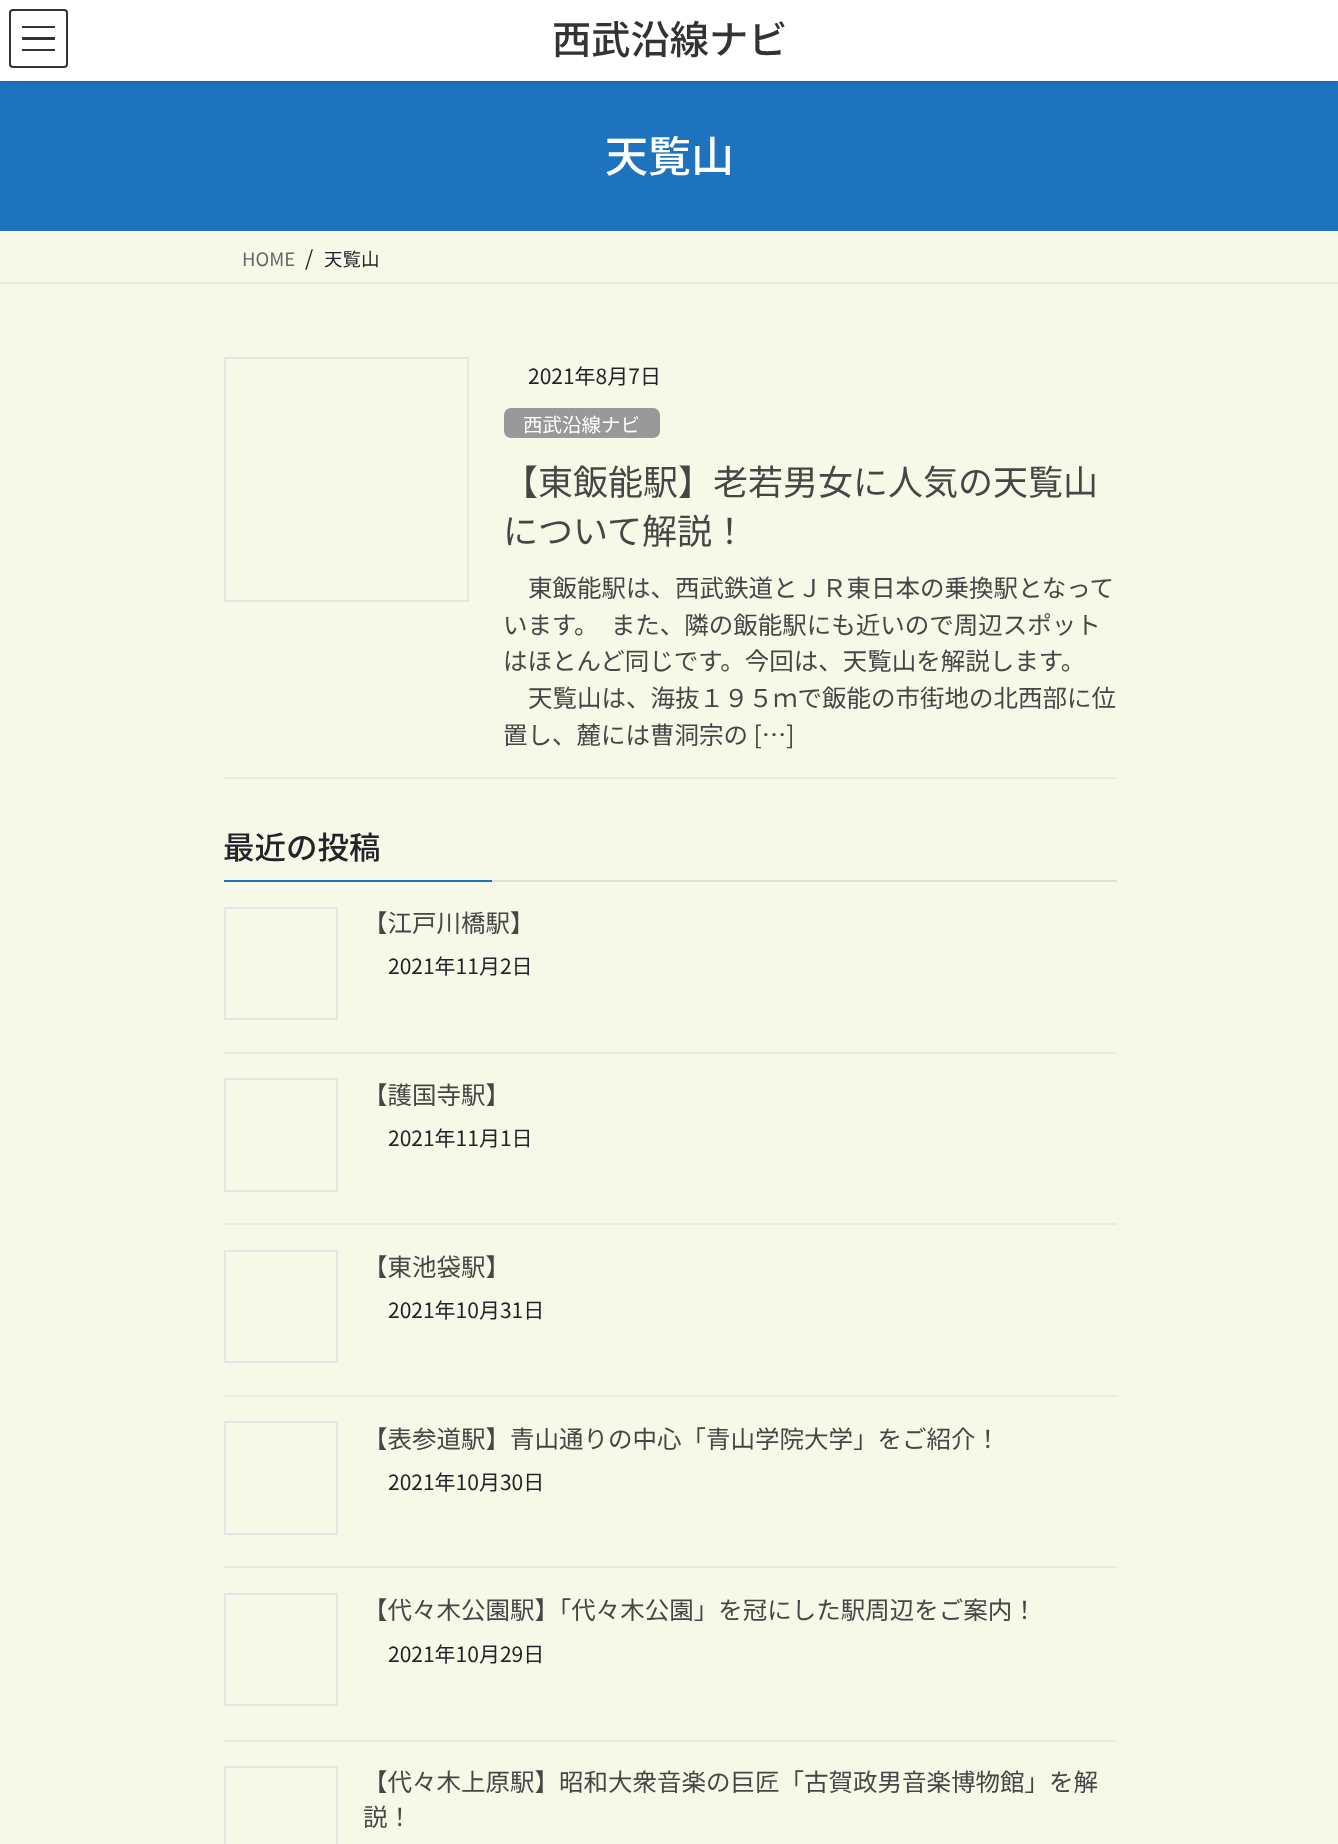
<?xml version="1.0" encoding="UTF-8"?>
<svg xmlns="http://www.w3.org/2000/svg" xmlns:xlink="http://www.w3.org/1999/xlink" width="1338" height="1844">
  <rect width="100%" height="100%" fill="#f7f9e8" />
  <rect y="81" width="1338" height="150" fill="#1e73be" />
  <rect y="2" width="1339" height="80" fill="#000000" fill-opacity="0.1" filter="blur(2.5px)" />
  <rect width="1338" height="81" fill="#ffffff" />
  <rect x="22" y="26" width="33" height="2" fill="#333333" />
  <rect x="22" y="37" width="33" height="3" fill="#333333" />
  <rect x="22" y="49" width="33" height="2" fill="#333333" />
  <rect x="10" y="10" width="57" height="57" rx="3" fill="none" stroke="#333333" stroke-width="2" />
  <rect y="282" width="1338" height="2" fill="#ebeddc" />
  <rect x="224" y="777" width="893" height="2" fill="#ebeddc" />
  <rect x="225" y="358" width="243" height="243" fill="none" stroke="#e5e5e5" stroke-width="2" />
  <rect x="504" y="408" width="156" height="30" rx="7" fill="#999999" />
  <rect x="492" y="880" width="625" height="2" fill="#dee0d1" />
  <rect x="224" y="880" width="268" height="2" fill="#1e73be" />
  <rect x="224" y="1052" width="893" height="2" fill="#ebeddc" />
  <rect x="225" y="908" width="112" height="111" fill="none" stroke="#e5e5e5" stroke-width="2" />
  <rect x="224" y="1223" width="893" height="2" fill="#ebeddc" />
  <rect x="225" y="1079" width="112" height="112" fill="none" stroke="#e5e5e5" stroke-width="2" />
  <rect x="224" y="1395" width="893" height="2" fill="#ebeddc" />
  <rect x="225" y="1251" width="112" height="111" fill="none" stroke="#e5e5e5" stroke-width="2" />
  <rect x="224" y="1566" width="893" height="2" fill="#ebeddc" />
  <rect x="225" y="1422" width="112" height="112" fill="none" stroke="#e5e5e5" stroke-width="2" />
  <rect x="224" y="1740" width="893" height="2" fill="#ebeddc" />
  <rect x="225" y="1594" width="112" height="111" fill="none" stroke="#e5e5e5" stroke-width="2" />
  <rect x="225" y="1767" width="112" height="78" fill="none" stroke="#e5e5e5" stroke-width="2" />
  <text x="552" y="54" style="font-family: Noto Sans JP; font-size: 39.25px; font-weight: 500; fill: #333333">西武沿線ナビ</text>
  <text x="605" y="172" style="font-family: Noto Sans JP; font-size: 43px; font-weight: 500; fill: #ffffff">天覧山</text>
  <text x="242" y="266" style="font-family: Noto Sans JP; font-size: 18.5px; fill: #666666">HOME</text>
  <text x="305" y="266" style="font-family: Noto Sans JP; font-size: 21px; fill: #212529">/</text>
  <text x="324" y="266" style="font-family: Noto Sans JP; font-size: 18.5px; fill: #212529">天覧山</text>
  <text x="528" y="384" style="font-family: Noto Sans JP; font-size: 21px; fill: #212529">2021年8月7日</text>
  <text x="523" y="432" style="font-family: Noto Sans JP; font-size: 19.5px; fill: #ffffff">西武沿線ナビ</text>
  <text x="503" y="495" style="font-family: Noto Sans JP; font-size: 35px; fill: #464646">【東飯能駅】老若男女に人気の天覧山</text>
  <text x="503" y="544" style="font-family: Noto Sans JP; font-size: 35px; fill: #464646">について解説！</text>
  <text x="528" y="597" style="font-family: Noto Sans JP; font-size: 24.5px; fill: #464646">東飯能駅は、西武鉄道とＪＲ東日本の乗換駅となって</text>
  <text x="503" y="634" style="font-family: Noto Sans JP; font-size: 24.5px; fill: #464646">います。　また、隣の飯能駅にも近いので周辺スポット</text>
  <text x="503" y="670" style="font-family: Noto Sans JP; font-size: 24.5px; fill: #464646">はほとんど同じです。今回は、天覧山を解説します。</text>
  <text x="528" y="707" style="font-family: Noto Sans JP; font-size: 24.5px; fill: #464646">天覧山は、海抜１９５ｍで飯能の市街地の北西部に位</text>
  <text x="503" y="744" style="font-family: Noto Sans JP; font-size: 24.5px; fill: #464646">置し、麓には曹洞宗の […]</text>
  <text x="223" y="859" style="font-family: Noto Sans JP; font-size: 31.5px; font-weight: 500; fill: #212529">最近の投稿</text>
  <text x="363" y="932" style="font-family: Noto Sans JP; font-size: 24.5px; fill: #464646">【江戸川橋駅】</text>
  <text x="388" y="974" style="font-family: Noto Sans JP; font-size: 21px; fill: #212529">2021年11月2日</text>
  <text x="363" y="1104" style="font-family: Noto Sans JP; font-size: 24.5px; fill: #464646">【護国寺駅】</text>
  <text x="388" y="1146" style="font-family: Noto Sans JP; font-size: 21px; fill: #212529">2021年11月1日</text>
  <text x="363" y="1276" style="font-family: Noto Sans JP; font-size: 24.5px; fill: #464646">【東池袋駅】</text>
  <text x="388" y="1318" style="font-family: Noto Sans JP; font-size: 21px; fill: #212529">2021年10月31日</text>
  <text x="363" y="1448" style="font-family: Noto Sans JP; font-size: 24.5px; fill: #464646">【表参道駅】青山通りの中心「青山学院大学」をご紹介！</text>
  <text x="388" y="1490" style="font-family: Noto Sans JP; font-size: 21px; fill: #212529">2021年10月30日</text>
  <text x="363" y="1619" style="font-family: Noto Sans JP; font-size: 24.5px; fill: #464646">【代々木公園駅】「代々木公園」を冠にした駅周辺をご案内！</text>
  <text x="388" y="1662" style="font-family: Noto Sans JP; font-size: 21px; fill: #212529">2021年10月29日</text>
  <text x="363" y="1791" style="font-family: Noto Sans JP; font-size: 24.5px; fill: #464646">【代々木上原駅】昭和大衆音楽の巨匠「古賀政男音楽博物館」を解</text>
  <text x="363" y="1826" style="font-family: Noto Sans JP; font-size: 24.5px; fill: #464646">説！</text>
</svg>
